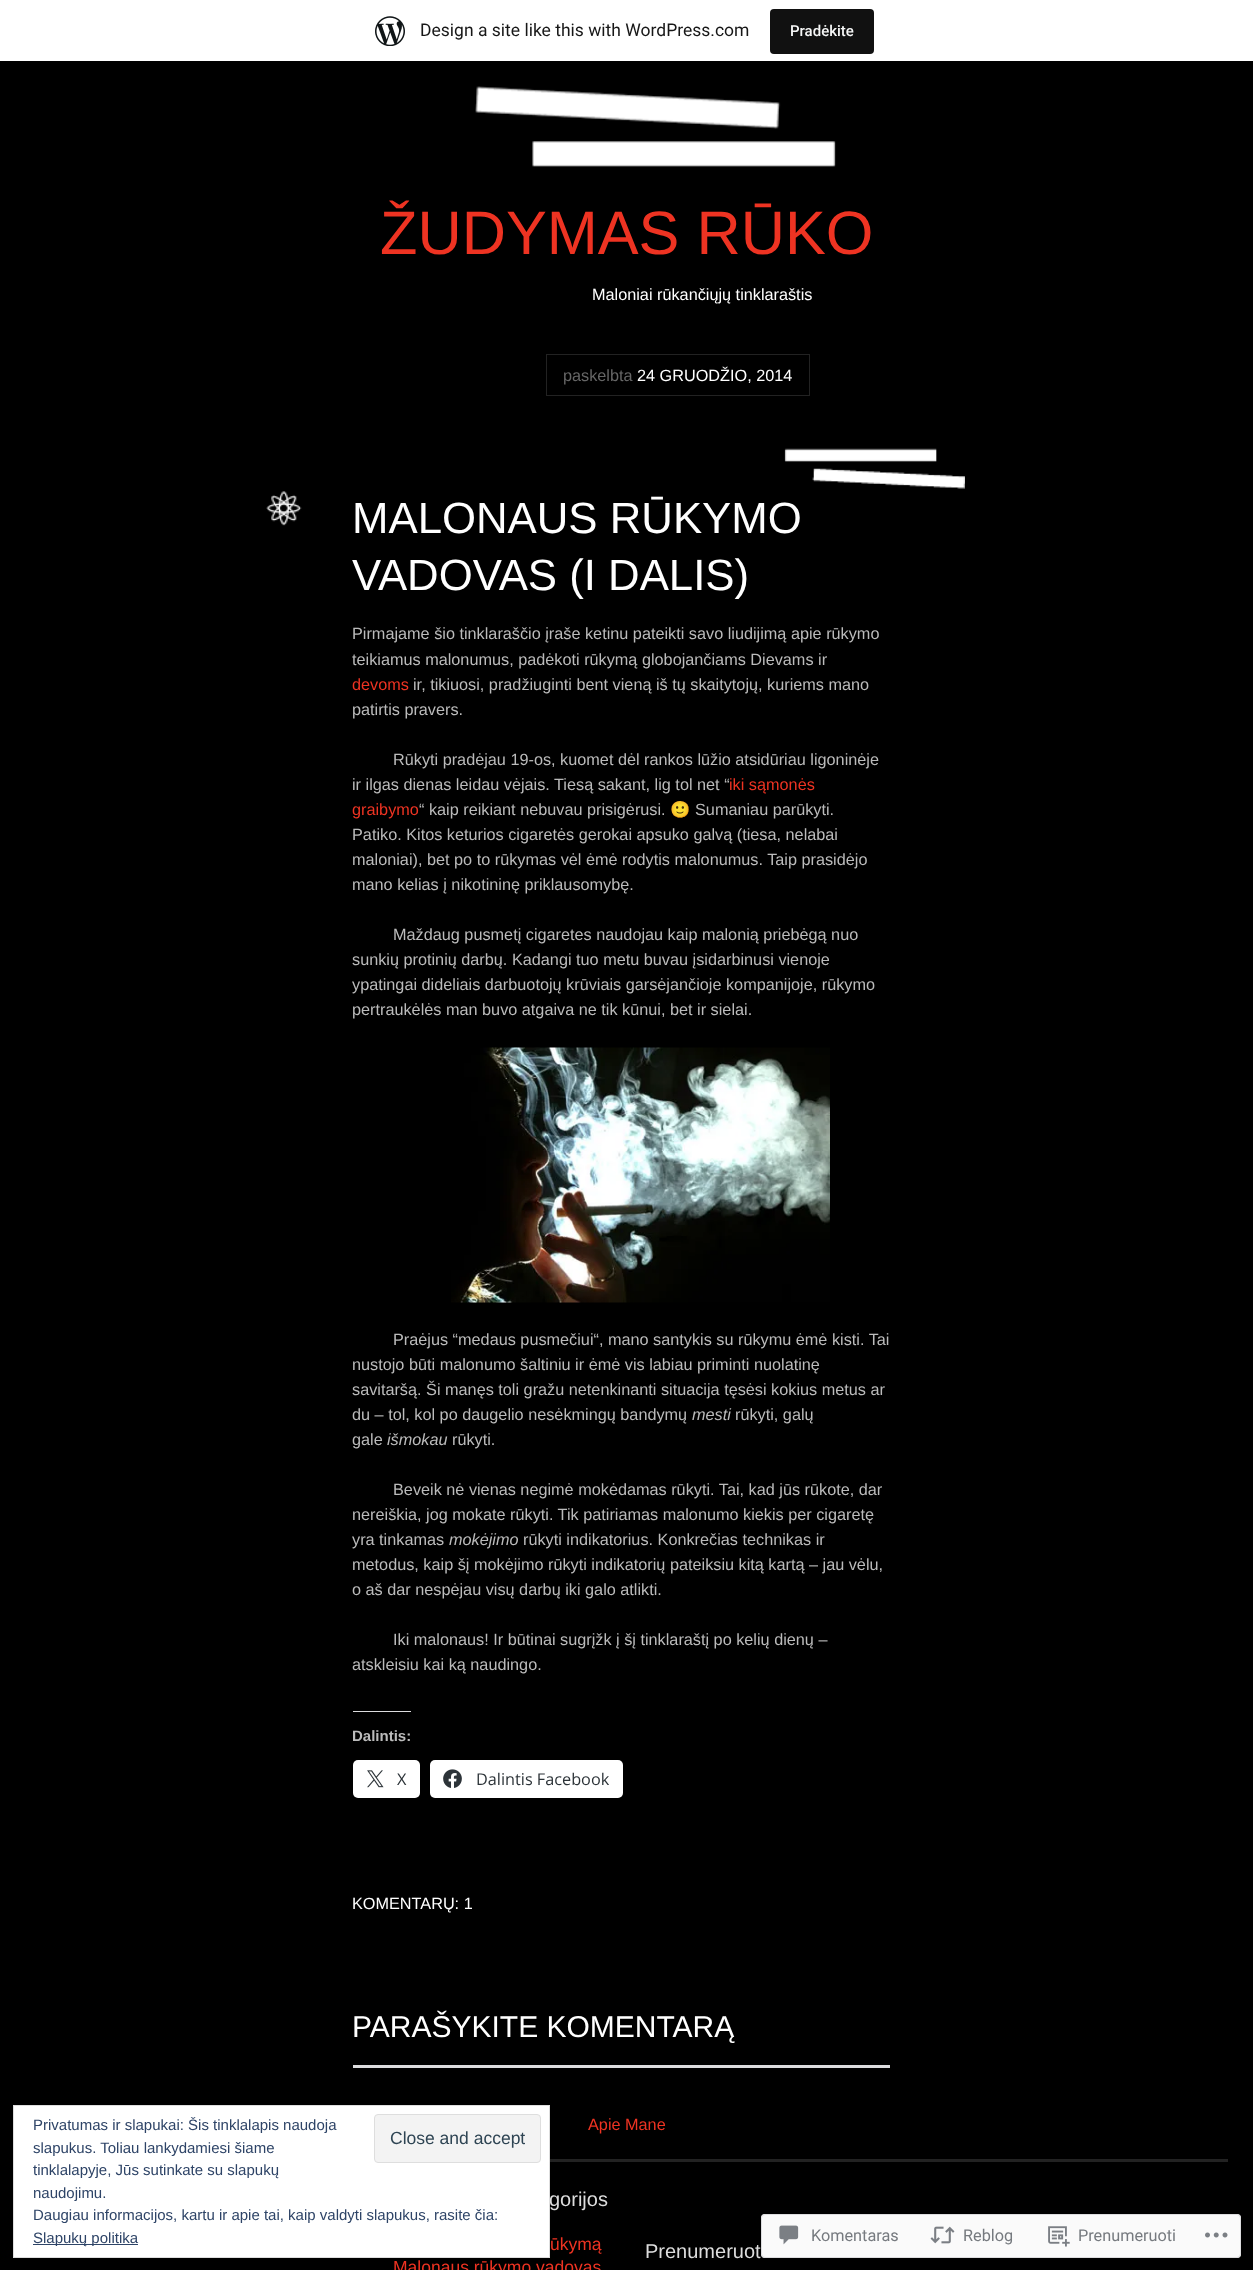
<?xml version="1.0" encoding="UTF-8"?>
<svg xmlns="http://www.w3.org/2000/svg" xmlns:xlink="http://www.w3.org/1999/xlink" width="1253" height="2270">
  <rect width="100%" height="100%" fill="#000000" />
  <rect width="1253" height="61" fill="#ffffff" />
  <image x="375" y="16" width="30" height="30" xlink:href="image1.png" />
  <rect x="770" y="9" width="104" height="45" rx="4" fill="#111111" />
  <image x="475" y="86" width="361" height="81" xlink:href="image2.png" />
  <rect x="546" y="395" width="92" height="1" fill="#222222" />
  <rect x="546" y="354" width="264" height="1" fill="#222222" />
  <rect x="546" y="354" width="1" height="42" fill="#222222" />
  <rect x="809" y="354" width="1" height="42" fill="#222222" />
  <rect x="638" y="395" width="172" height="1" fill="#222222" />
  <image x="784" y="448" width="181" height="41" xlink:href="image3.png" />
  <image x="266" y="491" width="36" height="35" xlink:href="image4.png" />
  <image x="451" y="1047" width="379" height="256" xlink:href="image5.png" />
  <rect x="353" y="1711" width="58" height="1" fill="#dcdcde" />
  <rect x="353" y="1760" width="67" height="38" rx="5" fill="#ffffff" />
  <image x="367" y="1770" width="17" height="18" xlink:href="image6.png" />
  <rect x="430" y="1760" width="193" height="38" rx="5" fill="#ffffff" />
  <image x="443" y="1769" width="19" height="19" xlink:href="image7.png" />
  <rect x="353" y="2065" width="537" height="3" fill="#dcdcde" />
  <rect x="550" y="2159" width="678" height="3" fill="#222222" />
  <rect x="761" y="2214" width="480" height="44" rx="4" fill="#ffffff" fill-opacity="0.98" />
  <rect x="761.5" y="2214.5" width="479" height="43" rx="3.5" fill="none" stroke="#dcdcde" stroke-opacity="0.98" />
  <image x="779" y="2225" width="20" height="20" xlink:href="image8.png" />
  <image x="930" y="2226" width="25" height="18" xlink:href="image9.png" />
  <image x="1048" y="2226" width="22" height="21" xlink:href="image10.png" />
  <image x="1205" y="2232" width="23" height="6" xlink:href="image11.png" />
  <text x="420" y="36" style="font-family: Roboto; font-size: 17.5px; fill: #171717">Design a site like this with WordPress.com</text>
  <text x="790" y="36" style="font-family: Roboto; font-size: 15px; font-weight: 500; fill: #f6f7f7">Pradėkite</text>
  <text x="380" y="254" style="font-family: Liberation Sans; font-size: 61.25px; fill: #ee3322">ŽUDYMAS RŪKO</text>
  <text x="592" y="300" style="font-family: Liberation Sans; font-size: 16.25px; fill: #ffffff">Maloniai rūkančiųjų tinklaraštis</text>
  <text x="563" y="381" style="font-family: Liberation Sans; font-size: 16.25px; fill: #666666">paskelbta</text>
  <text x="637" y="381" style="font-family: Liberation Sans; font-size: 16.25px; fill: #ffffff">24 GRUODŽIO, 2014</text>
  <text x="352" y="533" style="font-family: Liberation Sans; font-size: 43.75px; fill: #ffffff">MALONAUS RŪKYMO</text>
  <text x="352" y="590" style="font-family: Liberation Sans; font-size: 43.75px; fill: #ffffff">VADOVAS (I DALIS)</text>
  <text x="352" y="639" style="font-family: Liberation Sans; font-size: 16.25px; fill: #bbbbbb">Pirmajame šio tinklaraščio įraše ketinu pateikti savo liudijimą apie rūkymo</text>
  <text x="352" y="665" style="font-family: Liberation Sans; font-size: 16.25px; fill: #bbbbbb">teikiamus malonumus, padėkoti rūkymą globojančiams Dievams ir</text>
  <text x="352" y="690" style="font-family: Liberation Sans; font-size: 16.25px; fill: #ee3322">devoms</text>
  <text x="413" y="690" style="font-family: Liberation Sans; font-size: 16.25px; fill: #bbbbbb">ir, tikiuosi, pradžiuginti bent vieną iš tų skaitytojų, kuriems mano</text>
  <text x="352" y="715" style="font-family: Liberation Sans; font-size: 16.25px; fill: #bbbbbb">patirtis pravers.</text>
  <text x="393" y="765" style="font-family: Liberation Sans; font-size: 16.25px; fill: #bbbbbb">Rūkyti pradėjau 19-os, kuomet dėl rankos lūžio atsidūriau ligoninėje</text>
  <text x="352" y="790" style="font-family: Liberation Sans; font-size: 16.25px; fill: #bbbbbb">ir ilgas dienas leidau vėjais. Tiesą sakant, lig tol net “</text>
  <text x="729" y="790" style="font-family: Liberation Sans; font-size: 16.25px; fill: #ee3322">iki sąmonės</text>
  <text x="352" y="815" style="font-family: Liberation Sans; font-size: 16.25px; fill: #ee3322">graibymo</text>
  <text x="419" y="815" style="font-family: Liberation Sans; font-size: 16.25px; fill: #bbbbbb">“ kaip reikiant nebuvau prisigėrusi.</text>
  <text x="670" y="815" style="font-family: Noto Color Emoji; font-size: 16.25px; fill: #bbbbbb">🙂</text>
  <text x="695" y="815" style="font-family: Liberation Sans; font-size: 16.25px; fill: #bbbbbb">Sumaniau parūkyti.</text>
  <text x="352" y="840" style="font-family: Liberation Sans; font-size: 16.25px; fill: #bbbbbb">Patiko. Kitos keturios cigaretės gerokai apsuko galvą (tiesa, nelabai</text>
  <text x="352" y="865" style="font-family: Liberation Sans; font-size: 16.25px; fill: #bbbbbb">maloniai), bet po to rūkymas vėl ėmė rodytis malonumus. Taip prasidėjo</text>
  <text x="352" y="890" style="font-family: Liberation Sans; font-size: 16.25px; fill: #bbbbbb">mano kelias į nikotininę priklausomybę.</text>
  <text x="393" y="940" style="font-family: Liberation Sans; font-size: 16.25px; fill: #bbbbbb">Maždaug pusmetį cigaretes naudojau kaip malonią priebėgą nuo</text>
  <text x="352" y="965" style="font-family: Liberation Sans; font-size: 16.25px; fill: #bbbbbb">sunkių protinių darbų. Kadangi tuo metu buvau įsidarbinusi vienoje</text>
  <text x="352" y="990" style="font-family: Liberation Sans; font-size: 16.25px; fill: #bbbbbb">ypatingai dideliais darbuotojų krūviais garsėjančioje kompanijoje, rūkymo</text>
  <text x="352" y="1015" style="font-family: Liberation Sans; font-size: 16.25px; fill: #bbbbbb">pertraukėlės man buvo atgaiva ne tik kūnui, bet ir sielai.</text>
  <text x="393" y="1345" style="font-family: Liberation Sans; font-size: 16.25px; fill: #bbbbbb">Praėjus “medaus pusmečiui“, mano santykis su rūkymu ėmė kisti. Tai</text>
  <text x="352" y="1370" style="font-family: Liberation Sans; font-size: 16.25px; fill: #bbbbbb">nustojo būti malonumo šaltiniu ir ėmė vis labiau priminti nuolatinę</text>
  <text x="352" y="1395" style="font-family: Liberation Sans; font-size: 16.25px; fill: #bbbbbb">savitaršą. Ši manęs toli gražu netenkinanti situacija tęsėsi kokius metus ar</text>
  <text x="352" y="1420" style="font-family: Liberation Sans; font-size: 16.25px; fill: #bbbbbb">du – tol, kol po daugelio nesėkmingų bandymų</text>
  <text x="692" y="1420" style="font-family: Liberation Sans; font-size: 16.25px; font-style: italic; fill: #bbbbbb">mesti</text>
  <text x="735" y="1420" style="font-family: Liberation Sans; font-size: 16.25px; fill: #bbbbbb">rūkyti, galų</text>
  <text x="352" y="1445" style="font-family: Liberation Sans; font-size: 16.25px; fill: #bbbbbb">gale</text>
  <text x="387" y="1445" style="font-family: Liberation Sans; font-size: 16.25px; font-style: italic; fill: #bbbbbb">išmokau</text>
  <text x="452" y="1445" style="font-family: Liberation Sans; font-size: 16.25px; fill: #bbbbbb">rūkyti.</text>
  <text x="393" y="1495" style="font-family: Liberation Sans; font-size: 16.25px; fill: #bbbbbb">Beveik nė vienas negimė mokėdamas rūkyti. Tai, kad jūs rūkote, dar</text>
  <text x="352" y="1520" style="font-family: Liberation Sans; font-size: 16.25px; fill: #bbbbbb">nereiškia, jog mokate rūkyti. Tik patiriamas malonumo kiekis per cigaretę</text>
  <text x="352" y="1545" style="font-family: Liberation Sans; font-size: 16.25px; fill: #bbbbbb">yra tinkamas</text>
  <text x="449" y="1545" style="font-family: Liberation Sans; font-size: 16.25px; font-style: italic; fill: #bbbbbb">mokėjimo</text>
  <text x="523" y="1545" style="font-family: Liberation Sans; font-size: 16.25px; fill: #bbbbbb">rūkyti indikatorius. Konkrečias technikas ir</text>
  <text x="352" y="1570" style="font-family: Liberation Sans; font-size: 16.25px; fill: #bbbbbb">metodus, kaip šį mokėjimo rūkyti indikatorių pateiksiu kitą kartą – jau vėlu,</text>
  <text x="352" y="1595" style="font-family: Liberation Sans; font-size: 16.25px; fill: #bbbbbb">o aš dar nespėjau visų darbų iki galo atlikti.</text>
  <text x="393" y="1645" style="font-family: Liberation Sans; font-size: 16.25px; fill: #bbbbbb">Iki malonaus! Ir būtinai sugrįžk į šį tinklaraštį po kelių dienų –</text>
  <text x="352" y="1670" style="font-family: Liberation Sans; font-size: 16.25px; fill: #bbbbbb">atskleisiu kai ką naudingo.</text>
  <text x="352" y="1741" style="font-family: Liberation Sans; font-size: 15px; font-weight: bold; fill: #bbbbbb">Dalintis:</text>
  <text x="397" y="1785" style="font-family: Open Sans; font-size: 16.25px; fill: #2c3338">X</text>
  <text x="476" y="1785" style="font-family: Open Sans; font-size: 16.25px; fill: #2c3338">Dalintis Facebook</text>
  <text x="352" y="1909" style="font-family: Liberation Sans; font-size: 16.25px; fill: #ffffff">KOMENTARŲ: 1</text>
  <text x="352" y="2037" style="font-family: Liberation Sans; font-size: 30px; fill: #ffffff">PARAŠYKITE KOMENTARĄ</text>
  <text x="588" y="2130" style="font-family: Liberation Sans; font-size: 16.25px; fill: #ee3322">Apie Mane</text>
  <text x="549" y="2206" style="font-family: Liberation Sans; font-size: 20px; fill: #dddddd">gorijos</text>
  <rect x="13.5" y="2105.5" width="536" height="152" fill="#ffffff" stroke="#dedede" />
  <rect x="374.5" y="2114.5" width="166" height="48" rx="3.5" fill="#f3f3f3" stroke="#dedede" />
  <text x="390" y="2144" style="font-family: Liberation Sans; font-size: 17.5px; fill: #2e4453">Close and accept</text>
  <rect x="33" y="2244" width="105" height="1" fill="#2e4467" />
  <text x="33" y="2243" style="font-family: Liberation Sans; font-size: 15px; fill: #2e4467">Slapukų politika</text>
  <text x="33" y="2220" style="font-family: Liberation Sans; font-size: 15px; fill: #2e4467">Daugiau informacijos, kartu ir apie tai, kaip valdyti slapukus, rasite čia:</text>
  <text x="33" y="2198" style="font-family: Liberation Sans; font-size: 15px; fill: #2e4467">naudojimu.</text>
  <text x="33" y="2175" style="font-family: Liberation Sans; font-size: 15px; fill: #2e4467">tinklalapyje, Jūs sutinkate su slapukų</text>
  <text x="33" y="2153" style="font-family: Liberation Sans; font-size: 15px; fill: #2e4467">slapukus. Toliau lankydamiesi šiame</text>
  <text x="33" y="2130" style="font-family: Liberation Sans; font-size: 15px; fill: #2e4467">Privatumas ir slapukai: Šis tinklalapis naudoja</text>
  <text x="550" y="2250" style="font-family: Liberation Sans; font-size: 17.5px; fill: #ee3322">ūkymą</text>
  <text x="393" y="2273" style="font-family: Liberation Sans; font-size: 17.5px; fill: #ee3322">Malonaus rūkymo vadovas</text>
  <text x="645" y="2258" style="font-family: Liberation Sans; font-size: 20px; fill: #dddddd">Prenumeruot</text>
  <text x="811" y="2241" style="font-family: Roboto; font-size: 16.25px; fill: #767a7f">Komentaras</text>
  <text x="963" y="2241" style="font-family: Roboto; font-size: 16.25px; fill: #767a7f">Reblog</text>
  <text x="1078" y="2241" style="font-family: Roboto; font-size: 16.25px; fill: #767a7f">Prenumeruoti</text>
</svg>
